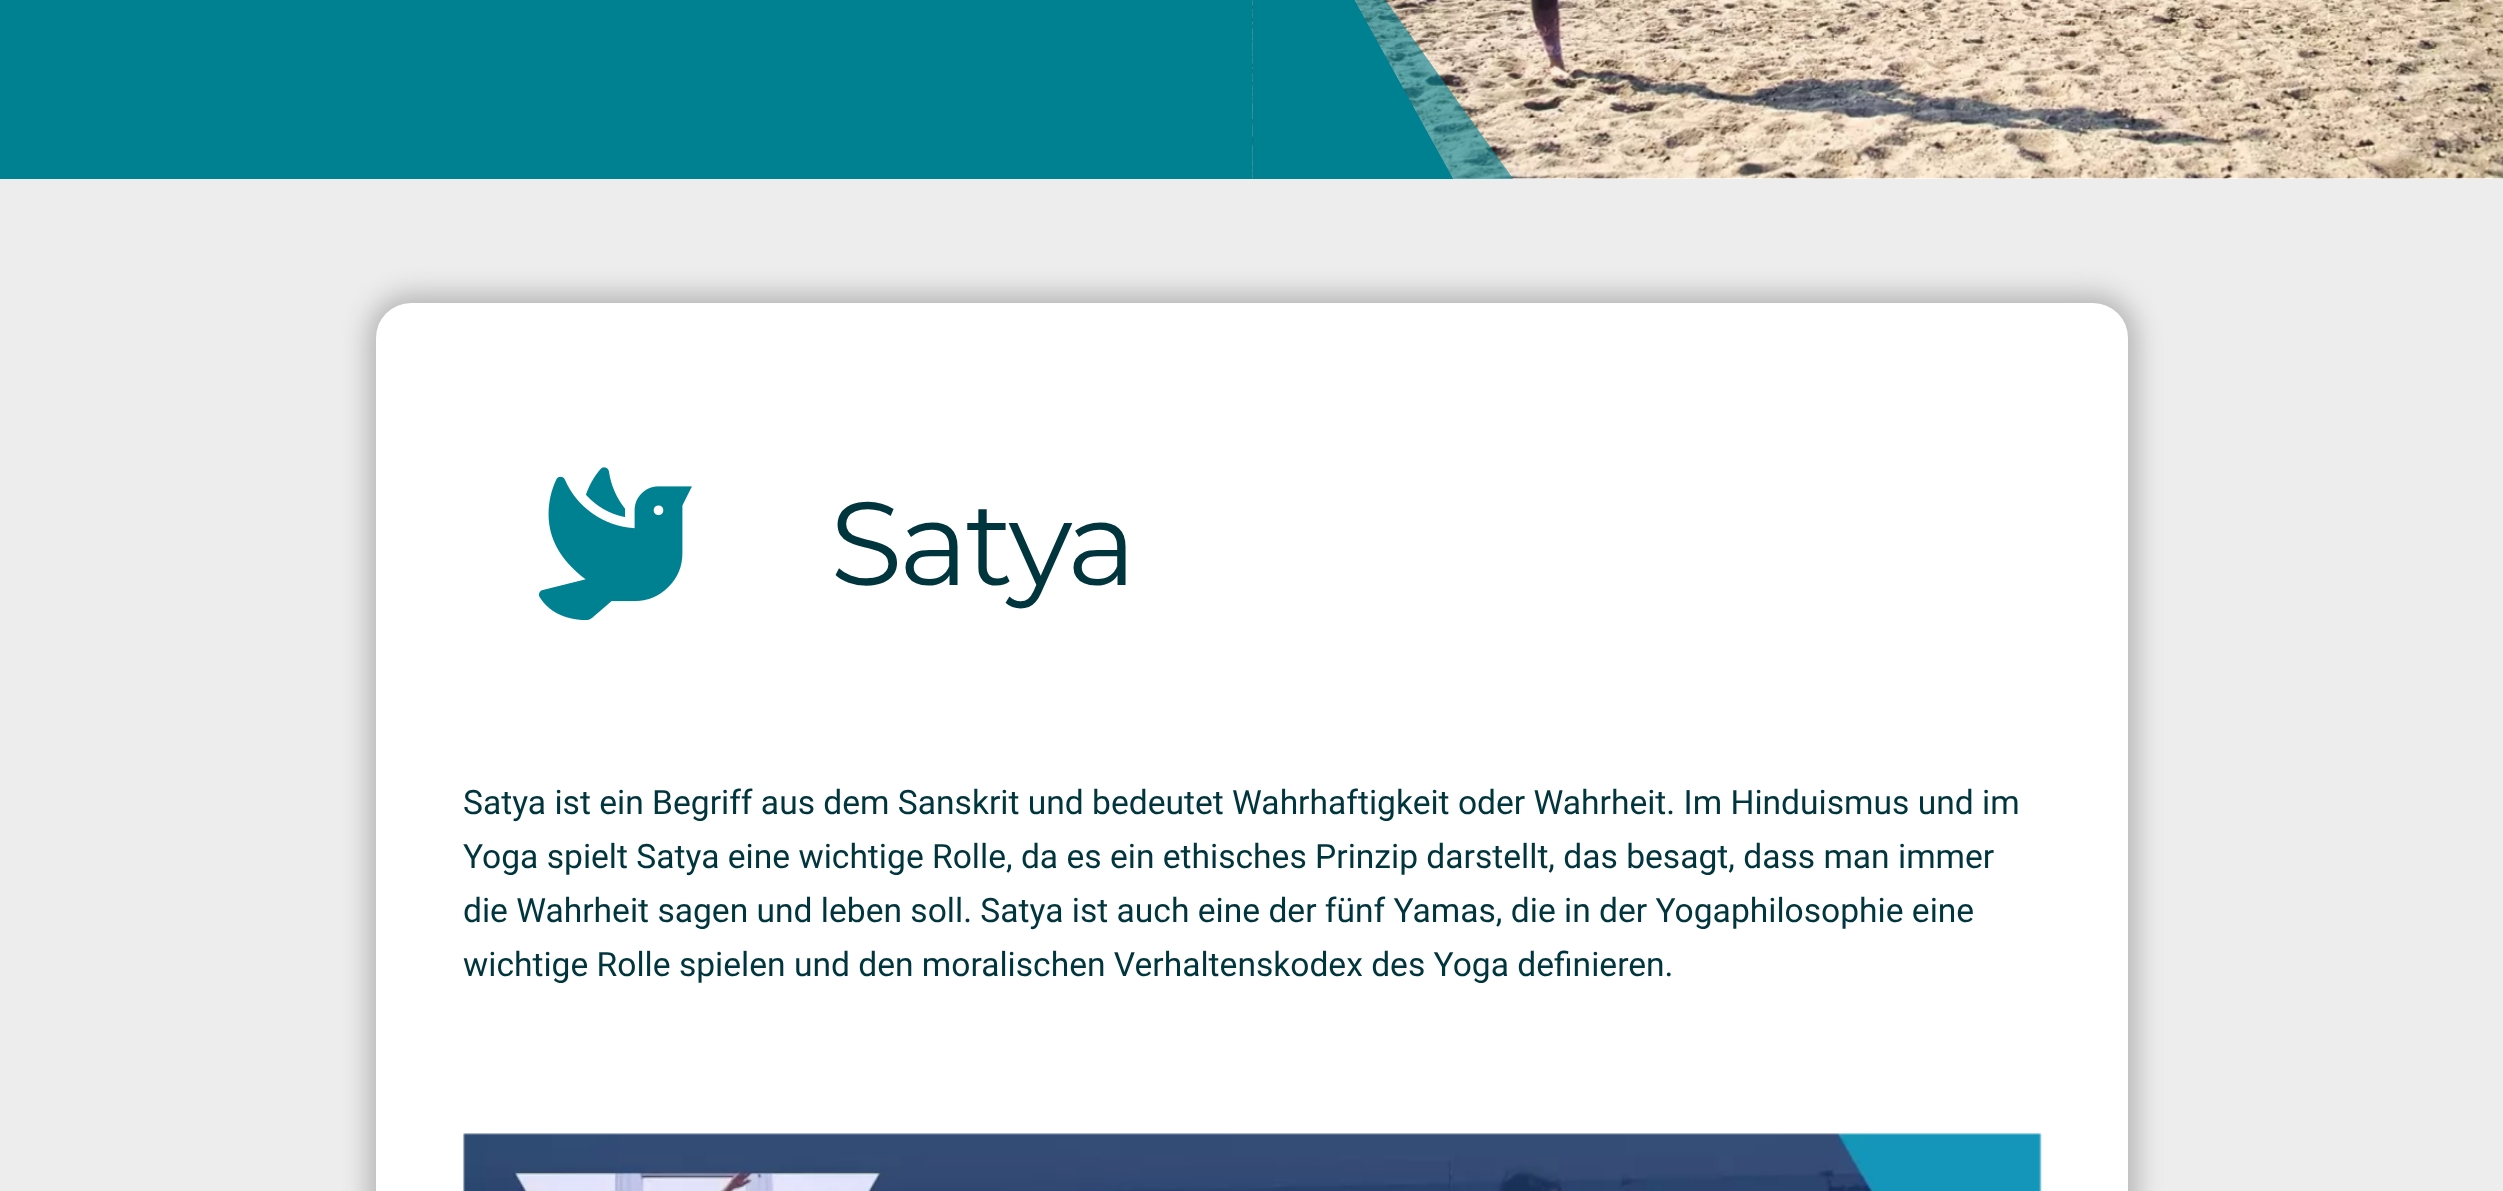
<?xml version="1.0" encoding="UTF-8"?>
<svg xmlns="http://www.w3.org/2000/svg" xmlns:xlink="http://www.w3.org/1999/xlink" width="2503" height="1191">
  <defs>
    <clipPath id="clip1"><rect x="1253" width="261" height="180" /></clipPath>
  </defs>
  <rect width="100%" height="100%" fill="#ffffff" />
  <rect width="1253" height="179" fill="#008192" />
  <image x="1252" y="0" width="1251" height="179" xlink:href="image1.png" />
  <g clip-path="url(#clip1)">
    <path d="M 1251 -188 l 203 -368 h -203 z m 203 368 l -203 -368 v 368 z" fill="#008192" />
  </g>
  <path d="M 1514 -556 h -60 l -203 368 z m 0 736 l -263 -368 l 203 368 z" fill="#008192" fill-opacity="0.6" />
  <rect y="179" width="2503" height="1012" fill="#ededed" />
  <rect x="368" y="294" width="1769" height="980" rx="44" fill="#b5b5b5" filter="blur(13px)" />
  <rect x="376" y="303" width="1752" height="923" rx="35" fill="#ffffff" />
  <image x="539" y="467" width="153" height="153" xlink:href="image2.png" />
  <image x="463" y="1133" width="1579" height="58" xlink:href="image3.png" />
  <text x="830" y="585" style="font-family: Montserrat; font-size: 118px; letter-spacing: -3.5px; fill: #00353d">Satya</text>
  <text x="463" y="814" style="font-family: Roboto; font-size: 33.6px; fill: #00353d">Satya ist ein Begriff aus dem Sanskrit und bedeutet Wahrhaftigkeit oder Wahrheit. Im Hinduismus und im</text>
  <text x="463" y="868" style="font-family: Roboto; font-size: 33.6px; fill: #00353d">Yoga spielt Satya eine wichtige Rolle, da es ein ethisches Prinzip darstellt, das besagt, dass man immer</text>
  <text x="463" y="922" style="font-family: Roboto; font-size: 33.6px; fill: #00353d">die Wahrheit sagen und leben soll. Satya ist auch eine der fünf Yamas, die in der Yogaphilosophie eine</text>
  <text x="463" y="976" style="font-family: Roboto; font-size: 33.6px; fill: #00353d">wichtige Rolle spielen und den moralischen Verhaltenskodex des Yoga definieren.</text>
</svg>
